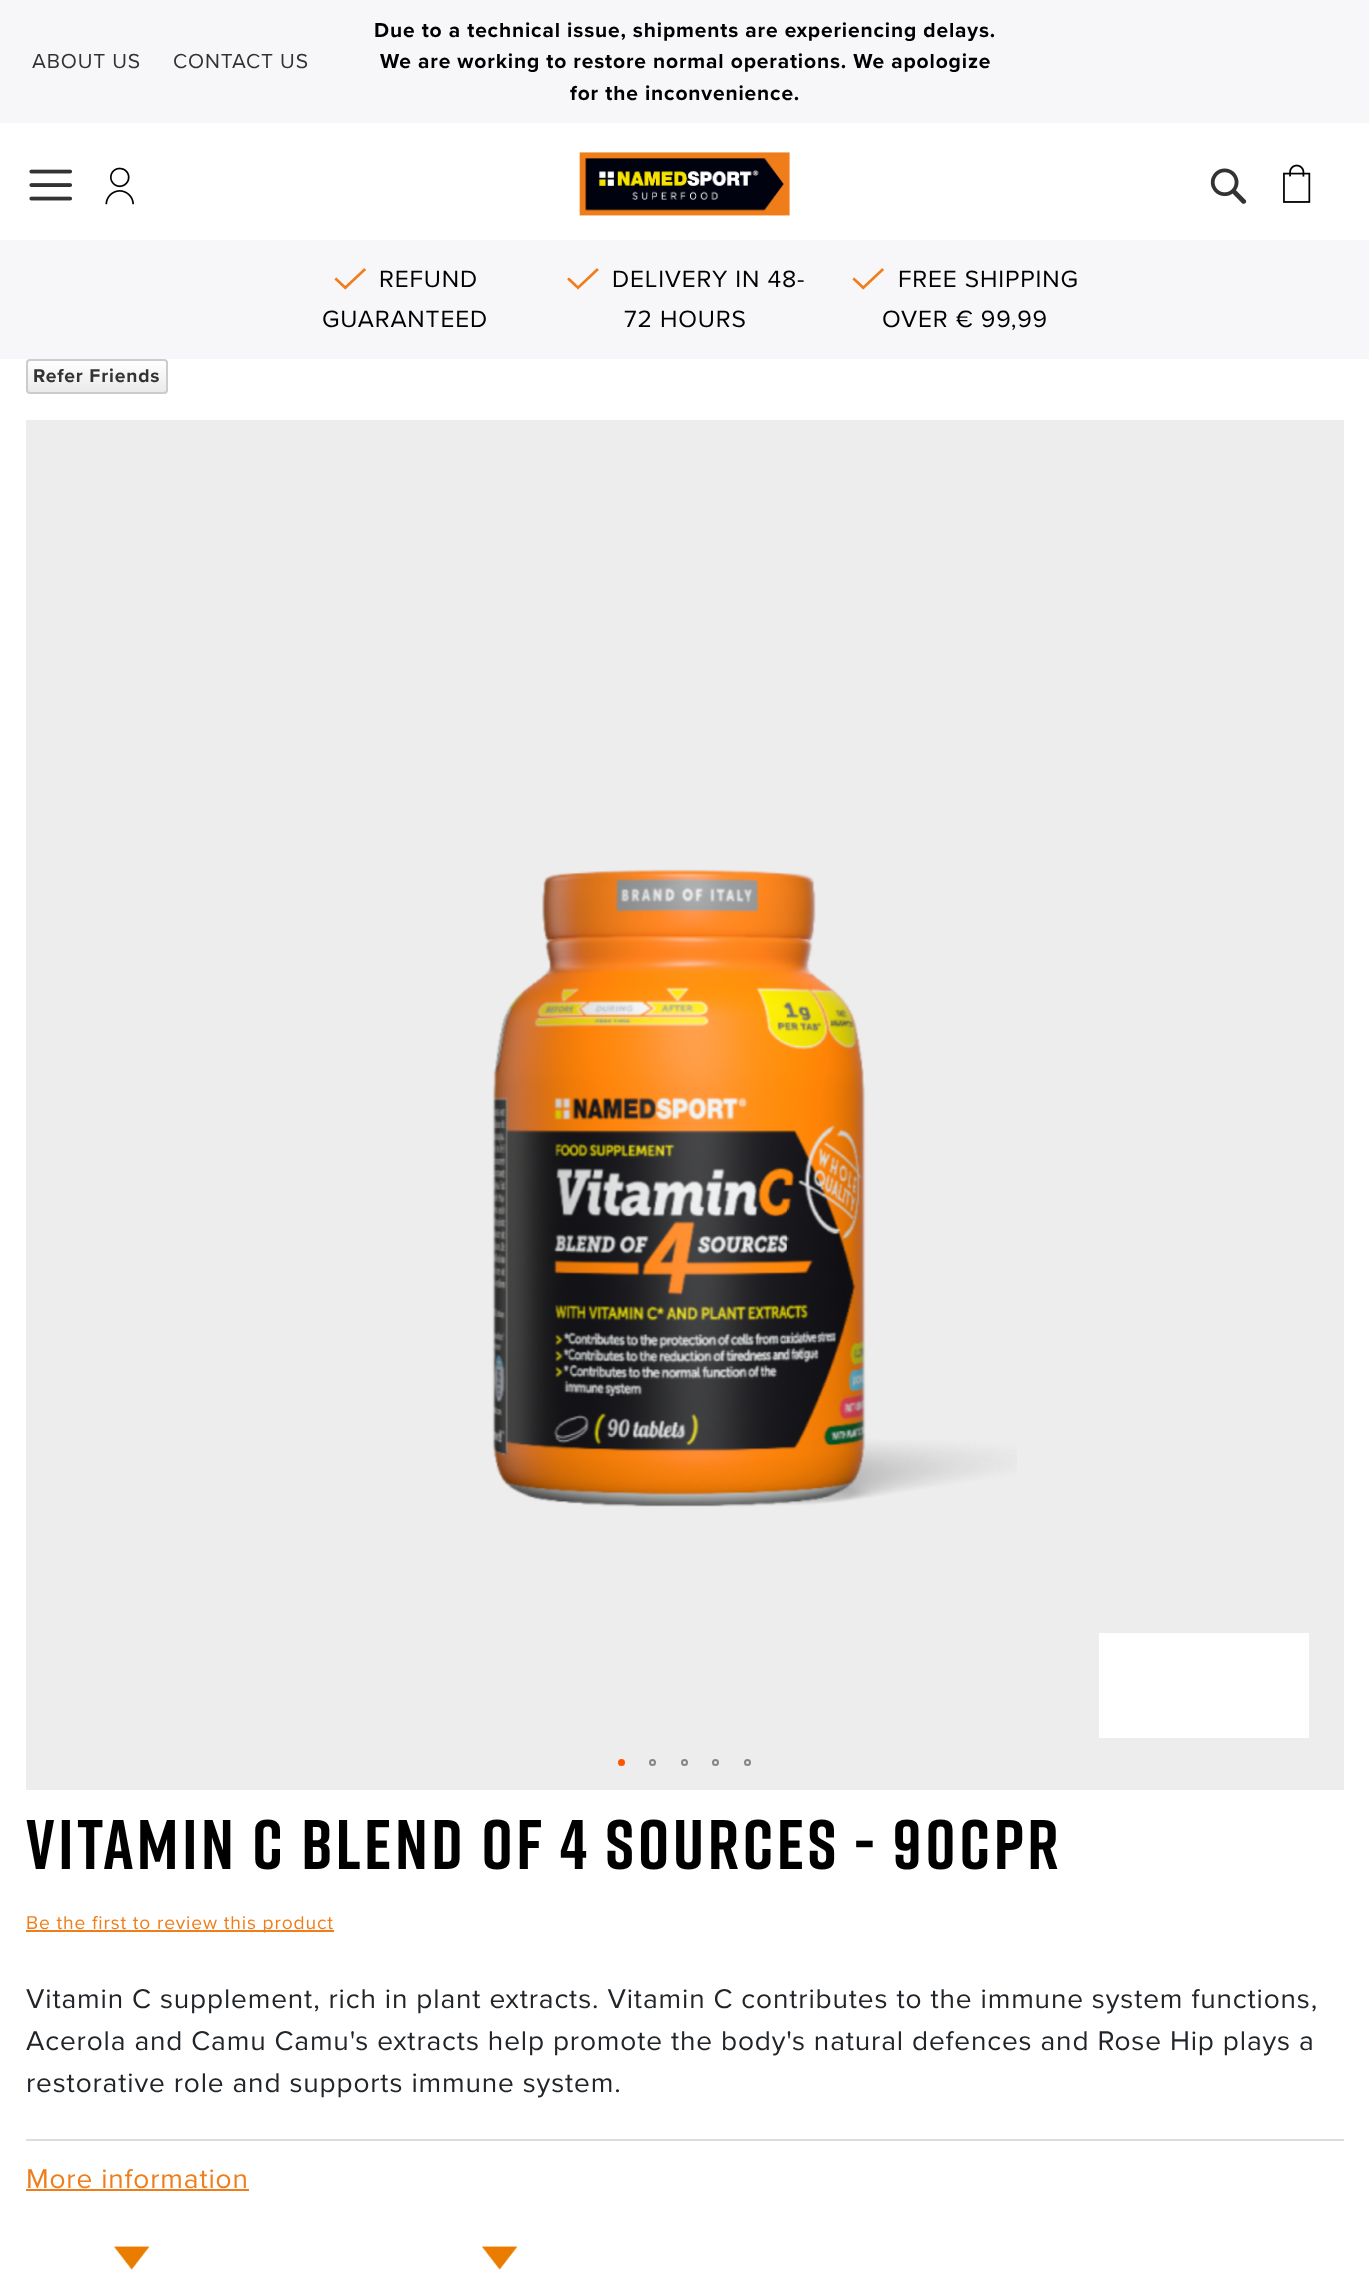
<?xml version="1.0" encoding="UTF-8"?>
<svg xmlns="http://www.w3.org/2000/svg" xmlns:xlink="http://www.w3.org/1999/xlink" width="1369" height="2282">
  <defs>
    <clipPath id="clip1"><rect x="26" y="359" width="142" height="35" rx="4" /></clipPath>
    <linearGradient id="g1" gradientUnits="userSpaceOnUse" x1="97" y1="361" x2="97" y2="392"><stop offset="0" stop-color="#ffffff" /><stop offset="1" stop-color="#eaeaea" /></linearGradient>
  </defs>
  <rect width="100%" height="100%" fill="#ffffff" />
  <rect width="1369" height="123" fill="#f7f7f9" />
  <image x="29" y="169" width="44" height="32" xlink:href="image1.png" />
  <image x="105" y="167" width="29" height="38" xlink:href="image2.png" />
  <image x="579" y="152" width="211" height="64" xlink:href="image3.png" />
  <image x="1210" y="168" width="37" height="36" xlink:href="image4.png" />
  <image x="1283" y="164" width="28" height="39" xlink:href="image5.png" />
  <rect y="240" width="1369" height="119" fill="#f7f7f9" />
  <image x="334" y="268" width="33" height="22" xlink:href="image6.png" />
  <image x="567" y="268" width="32" height="22" xlink:href="image7.png" />
  <image x="852" y="268" width="33" height="22" xlink:href="image6.png" />
  <g clip-path="url(#clip1)">
    <rect x="26" y="361" width="142" height="31" fill="url(#g1)" />
  </g>
  <rect x="27" y="360" width="140" height="33" rx="3" fill="none" stroke="#cccccc" stroke-width="2" />
  <rect x="26" y="420" width="1318" height="1370" fill="#ededed" />
  <circle cx="621.5" cy="1762.5" r="2.5" fill="#ff5501" stroke="#ff5501" stroke-width="2" />
  <circle cx="652.5" cy="1762.5" r="2.5" fill="none" stroke="#858585" stroke-width="2" />
  <circle cx="684.5" cy="1762.5" r="2.5" fill="none" stroke="#858585" stroke-width="2" />
  <circle cx="715.5" cy="1762.5" r="2.5" fill="none" stroke="#858585" stroke-width="2" />
  <circle cx="747.5" cy="1762.5" r="2.5" fill="none" stroke="#858585" stroke-width="2" />
  <image x="492" y="869" width="525" height="638" xlink:href="image8.png" />
  <rect x="1099" y="1633" width="210" height="105" fill="#ffffff" />
  <rect x="26" y="1930" width="308" height="2" fill="#ef7d1a" />
  <rect x="26" y="2139" width="1318" height="2" fill="#dddddd" />
  <rect x="26" y="2189" width="223" height="2" fill="#ef7d1a" />
  <image x="113" y="2246" width="405" height="24" xlink:href="image9.png" />
  <text x="32" y="68" style="font-family: Proxima Nova; font-size: 21px; letter-spacing: 0.85px; fill: #333333">ABOUT US</text>
  <text x="173" y="68" style="font-family: Proxima Nova; font-size: 21px; letter-spacing: 0.85px; fill: #333333">CONTACT US</text>
  <text x="374" y="37" style="font-family: Proxima Nova; font-size: 21px; font-weight: bold; letter-spacing: 0.85px; fill: #000000">Due to a technical issue, shipments are experiencing delays.</text>
  <text x="380" y="68" style="font-family: Proxima Nova; font-size: 21px; font-weight: bold; letter-spacing: 0.85px; fill: #000000">We are working to restore normal operations. We apologize</text>
  <text x="570" y="100" style="font-family: Proxima Nova; font-size: 21px; font-weight: bold; letter-spacing: 0.85px; fill: #000000">for the inconvenience.</text>
  <text x="379" y="287" style="font-family: Proxima Nova; font-size: 24.5px; letter-spacing: 0.85px; fill: #000000">REFUND</text>
  <text x="322" y="327" style="font-family: Proxima Nova; font-size: 24.5px; letter-spacing: 0.85px; fill: #000000">GUARANTEED</text>
  <text x="612" y="287" style="font-family: Proxima Nova; font-size: 24.5px; letter-spacing: 0.85px; fill: #000000">DELIVERY IN 48-</text>
  <text x="624" y="327" style="font-family: Proxima Nova; font-size: 24.5px; letter-spacing: 0.85px; fill: #000000">72 HOURS</text>
  <text x="898" y="287" style="font-family: Proxima Nova; font-size: 24.5px; letter-spacing: 0.85px; fill: #000000">FREE SHIPPING</text>
  <text x="882" y="327" style="font-family: Proxima Nova; font-size: 24.5px; letter-spacing: 0.85px; fill: #000000">OVER € 99,99</text>
  <text x="33" y="382" style="font-family: Proxima Nova; font-size: 19.25px; font-weight: bold; letter-spacing: 0.85px; fill: #333333">Refer Friends</text>
  <text x="26" y="1869" style="font-family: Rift; font-size: 70px; font-weight: bold; letter-spacing: 3.5px; fill: #000000">VITAMIN C BLEND OF 4 SOURCES - 90CPR</text>
  <text x="26" y="1929" style="font-family: Proxima Nova; font-size: 19.25px; letter-spacing: 0.85px; fill: #ef7d1a">Be the first to review this product</text>
  <text x="26" y="2008" style="font-family: Proxima Nova; font-size: 28px; letter-spacing: 0.85px; fill: #212529">Vitamin C supplement, rich in plant extracts. Vitamin C contributes to the immune system functions,</text>
  <text x="26" y="2050" style="font-family: Proxima Nova; font-size: 28px; letter-spacing: 0.85px; fill: #212529">Acerola and Camu Camu's extracts help promote the body's natural defences and Rose Hip plays a</text>
  <text x="26" y="2092" style="font-family: Proxima Nova; font-size: 28px; letter-spacing: 0.85px; fill: #212529">restorative role and supports immune system.</text>
  <text x="26" y="2188" style="font-family: Proxima Nova; font-size: 28px; letter-spacing: 0.85px; fill: #ef7d1a">More information</text>
</svg>
